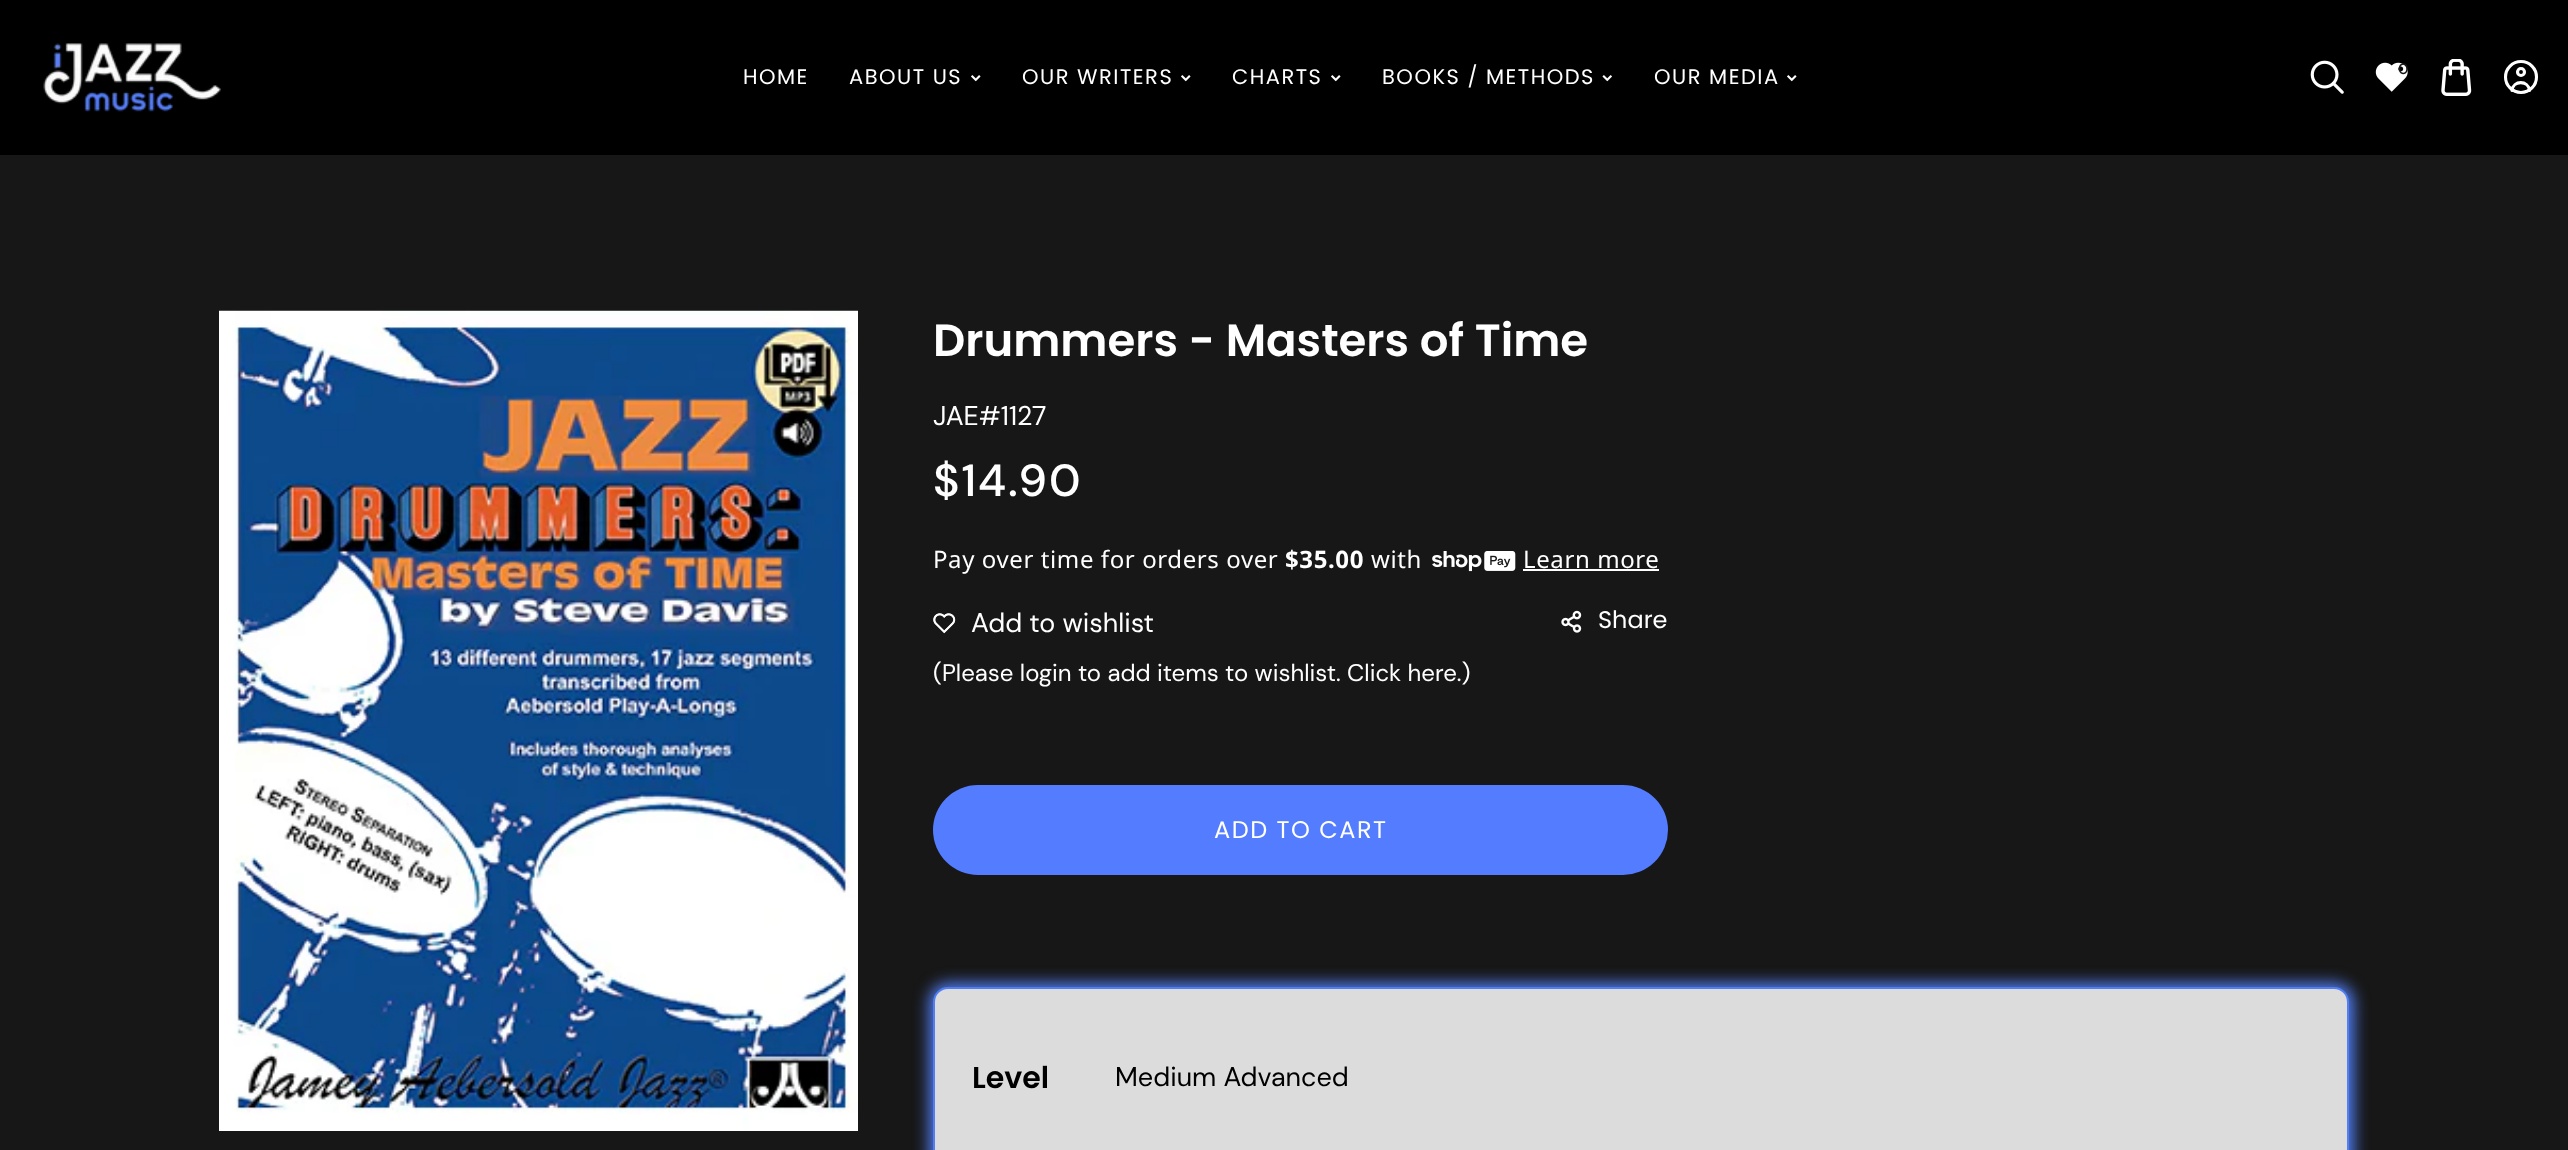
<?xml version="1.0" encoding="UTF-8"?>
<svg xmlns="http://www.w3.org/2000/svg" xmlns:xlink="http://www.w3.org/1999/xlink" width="2568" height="1150">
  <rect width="100%" height="100%" fill="#171717" />
  <rect width="2568" height="155" fill="#000000" />
  <image x="43" y="43" width="178" height="69" xlink:href="image1.png" />
  <image x="971" y="75" width="10" height="7" xlink:href="image2.png" />
  <image x="1181" y="75" width="10" height="7" xlink:href="image2.png" />
  <image x="1331" y="75" width="10" height="7" xlink:href="image2.png" />
  <image x="1602" y="75" width="10" height="7" xlink:href="image3.png" />
  <image x="1787" y="75" width="10" height="7" xlink:href="image2.png" />
  <image x="2310" y="60" width="34" height="34" xlink:href="image4.png" />
  <image x="2375" y="62" width="33" height="30" xlink:href="image5.png" />
  <image x="2441" y="59" width="31" height="37" xlink:href="image6.png" />
  <circle cx="2521" cy="77" r="15.5" fill="none" stroke="#ffffff" stroke-width="3.1" />
  <circle cx="2521" cy="72" r="3.5" fill="none" stroke="#ffffff" stroke-width="3.1" />
  <path d="M 2512 90.5 c 1 -10.5 16.5 -10.5 17.5 0" fill="none" stroke="#ffffff" stroke-width="3.1" stroke-linecap="round" stroke-linejoin="round" />
  <image x="219" y="310" width="639" height="821" xlink:href="image7.png" />
  <image x="1432" y="551" width="84" height="21" xlink:href="image8.png" />
  <rect x="1523" y="569" width="136" height="2" fill="#ffffff" />
  <image x="933" y="613" width="23" height="21" xlink:href="image9.png" />
  <image x="1561" y="610" width="21" height="23" xlink:href="image10.png" />
  <rect x="933" y="785" width="735" height="90" rx="45" fill="#547cff" />
  <rect x="929" y="983" width="1425" height="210" rx="20" fill="#517ef3" filter="blur(7.5px)" />
  <rect x="934" y="988" width="1414" height="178" rx="14" fill="#dcdcdc" stroke="#517ef3" stroke-width="2" />
  <text x="743" y="84" style="font-family: Poppins; font-size: 21px; letter-spacing: 1.5px; fill: #ffffff">HOME</text>
  <text x="849" y="84" style="font-family: Poppins; font-size: 21px; letter-spacing: 1.5px; fill: #ffffff">ABOUT US</text>
  <text x="1022" y="84" style="font-family: Poppins; font-size: 21px; letter-spacing: 1.5px; fill: #ffffff">OUR WRITERS</text>
  <text x="1232" y="84" style="font-family: Poppins; font-size: 21px; letter-spacing: 1.5px; fill: #ffffff">CHARTS</text>
  <text x="1382" y="84" style="font-family: Poppins; font-size: 21px; letter-spacing: 1.5px; fill: #ffffff">BOOKS / METHODS</text>
  <text x="1654" y="84" style="font-family: Poppins; font-size: 21px; letter-spacing: 1.5px; fill: #ffffff">OUR MEDIA</text>
  <text x="2398" y="74" style="font-family: DM Sans; font-size: 15px; font-weight: 500; fill: #171717">0</text>
  <text x="933" y="356" style="font-family: Poppins; font-size: 45px; font-weight: 600; fill: #ffffff">Drummers - Masters of Time</text>
  <text x="933" y="425" style="font-family: DM Sans; font-size: 27px; fill: #ffffff">JAE#1127</text>
  <text x="933" y="496" style="font-family: DM Sans; font-size: 45px; font-weight: 500; letter-spacing: 2px; fill: #ffffff">$14.90</text>
  <text x="933" y="568" style="font-family: Noto Sans; font-size: 24px; letter-spacing: 0.6px; fill: #ffffff">Pay over time for orders over</text>
  <text x="1285" y="568" style="font-family: Noto Sans; font-size: 24px; font-weight: bold; letter-spacing: 0.6px; fill: #ffffff">$35.00</text>
  <text x="1371" y="568" style="font-family: Noto Sans; font-size: 24px; letter-spacing: 0.6px; fill: #ffffff">with</text>
  <text x="1523" y="568" style="font-family: Noto Sans; font-size: 24px; letter-spacing: 0.6px; fill: #ffffff">Learn more</text>
  <text x="971" y="632" style="font-family: DM Sans; font-size: 27px; fill: #ffffff">Add to wishlist</text>
  <text x="933" y="681" style="font-family: DM Sans; font-size: 24px; fill: #ffffff">(Please login to add items to wishlist. Click here.)</text>
  <text x="1598" y="628" style="font-family: Poppins; font-size: 24px; fill: #ffffff">Share</text>
  <text x="1214" y="838" style="font-family: Poppins; font-size: 24px; letter-spacing: 1.5px; fill: #ffffff">ADD TO CART</text>
  <text x="972" y="1088" style="font-family: Poppins; font-size: 30px; font-weight: 600; fill: #000000">Level</text>
  <text x="1115" y="1086" style="font-family: DM Sans; font-size: 27px; fill: #000000">Medium Advanced</text>
</svg>
